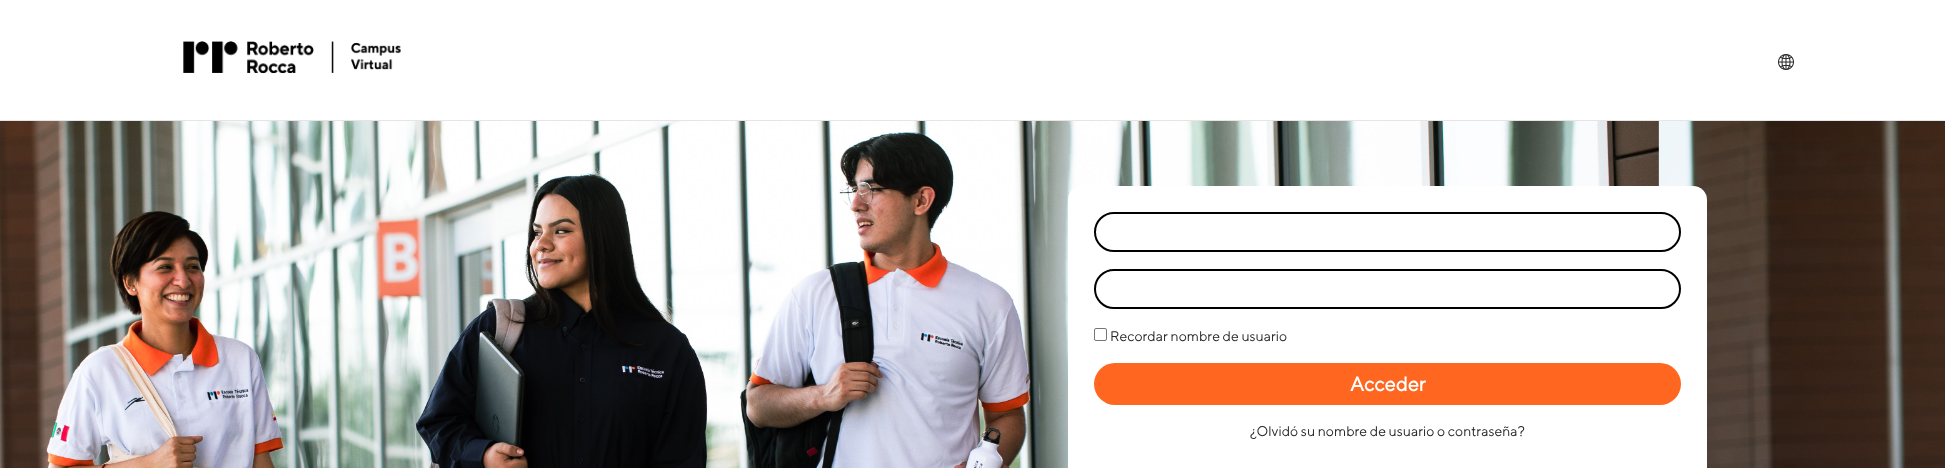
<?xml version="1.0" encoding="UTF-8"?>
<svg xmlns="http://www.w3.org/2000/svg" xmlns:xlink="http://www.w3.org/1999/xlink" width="1945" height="468">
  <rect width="100%" height="100%" fill="#ffffff" />
  <rect y="120" width="1945" height="1" fill="#e6e4e4" />
  <image x="183" y="41" width="218" height="33" xlink:href="image1.png" />
  <image x="1778" y="54" width="16" height="16" xlink:href="image2.png" />
  <image x="0" y="121" width="1945" height="347" xlink:href="image3.png" />
  <rect x="1068" y="186" width="639" height="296" rx="14" fill="#ffffff" />
  <rect x="1095" y="213" width="585" height="38" rx="19" fill="none" stroke="#000000" stroke-width="2" />
  <rect x="1095" y="270" width="585" height="38" rx="19" fill="none" stroke="#000000" stroke-width="2" />
  <rect x="1094.5" y="328.5" width="12" height="12" rx="1.5" fill="none" stroke="#767676" />
  <rect x="1094" y="363" width="587" height="42" rx="21" fill="#ff6721" />
  <text x="1110" y="341" style="font-family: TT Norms; font-size: 14px; fill: #262626">Recordar nombre de usuario</text>
  <text x="1350" y="391" style="font-family: TT Norms; font-size: 20px; font-weight: bold; fill: #ffffff">Acceder</text>
  <text x="1250" y="436" style="font-family: TT Norms; font-size: 14px; fill: #262626">¿Olvidó su nombre de usuario o contraseña?</text>
</svg>
